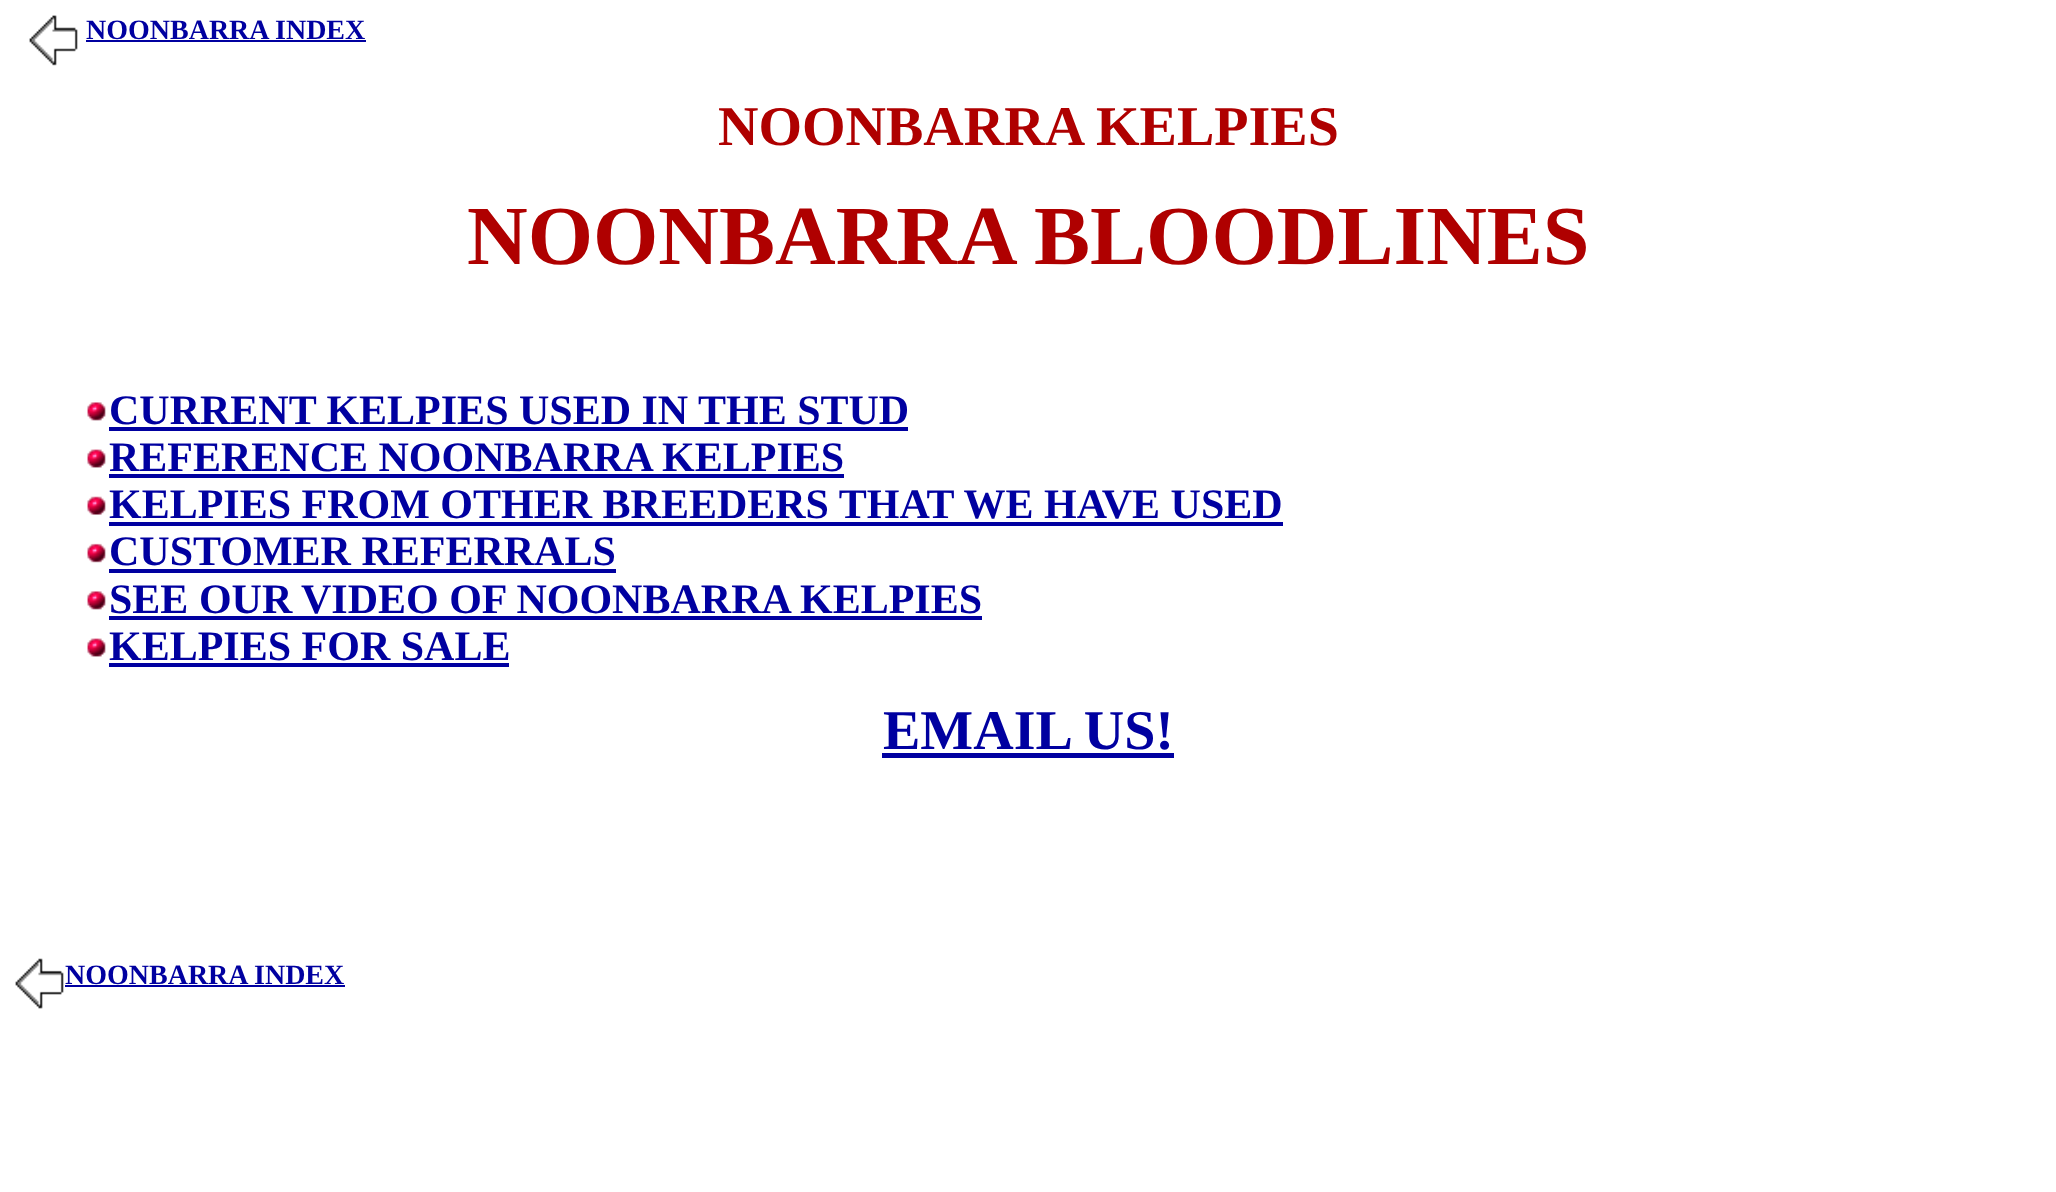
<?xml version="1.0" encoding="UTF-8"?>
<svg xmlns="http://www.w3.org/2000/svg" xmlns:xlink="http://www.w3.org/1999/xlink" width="2056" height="1192">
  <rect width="100%" height="100%" fill="#ffffff" />
  <image x="29" y="15" width="49" height="51" xlink:href="image1.png" />
  <rect x="86" y="40" width="280" height="2" fill="#0000a0" />
  <image x="87" y="402" width="19" height="19" xlink:href="image2.png" />
  <rect x="109" y="427" width="799" height="4" fill="#0000a0" />
  <image x="87" y="449" width="19" height="19" xlink:href="image3.png" />
  <rect x="109" y="474" width="735" height="4" fill="#0000a0" />
  <image x="87" y="496" width="19" height="19" xlink:href="image4.png" />
  <rect x="109" y="522" width="1174" height="4" fill="#0000a0" />
  <image x="87" y="543" width="19" height="20" xlink:href="image5.png" />
  <rect x="109" y="569" width="507" height="4" fill="#0000a0" />
  <image x="87" y="591" width="19" height="19" xlink:href="image2.png" />
  <rect x="109" y="616" width="873" height="4" fill="#0000a0" />
  <image x="87" y="638" width="19" height="19" xlink:href="image3.png" />
  <rect x="109" y="663" width="400" height="4" fill="#0000a0" />
  <rect x="882" y="753" width="292" height="5" fill="#0000a0" />
  <image x="15" y="958" width="49" height="51" xlink:href="image6.png" />
  <rect x="65" y="985" width="280" height="2" fill="#0000a0" />
  <text x="86" y="39" style="font-family: Liberation Serif; font-size: 28px; font-weight: bold; fill: #0000a0">NOONBARRA INDEX</text>
  <text x="718" y="145" style="font-family: Liberation Serif; font-size: 56px; font-weight: bold; fill: #af0000">NOONBARRA KELPIES</text>
  <text x="467" y="264" style="font-family: Liberation Serif; font-size: 84px; font-weight: bold; fill: #af0000">NOONBARRA BLOODLINES</text>
  <text x="109" y="424" style="font-family: Liberation Serif; font-size: 42px; font-weight: bold; fill: #0000a0">CURRENT KELPIES USED IN THE STUD</text>
  <text x="109" y="471" style="font-family: Liberation Serif; font-size: 42px; font-weight: bold; fill: #0000a0">REFERENCE NOONBARRA KELPIES</text>
  <text x="109" y="518" style="font-family: Liberation Serif; font-size: 42px; font-weight: bold; fill: #0000a0">KELPIES FROM OTHER BREEDERS THAT WE HAVE USED</text>
  <text x="109" y="565" style="font-family: Liberation Serif; font-size: 42px; font-weight: bold; fill: #0000a0">CUSTOMER REFERRALS</text>
  <text x="109" y="613" style="font-family: Liberation Serif; font-size: 42px; font-weight: bold; fill: #0000a0">SEE OUR</text>
  <text x="301" y="613" style="font-family: Liberation Serif; font-size: 42px; font-weight: bold; fill: #0000a0">VIDEO OF NOONBARRA KELPIES</text>
  <text x="109" y="660" style="font-family: Liberation Serif; font-size: 42px; font-weight: bold; fill: #0000a0">KELPIES FOR SALE</text>
  <text x="883" y="749" style="font-family: Liberation Serif; font-size: 56px; font-weight: bold; fill: #0000a0">EMAIL US!</text>
  <text x="65" y="984" style="font-family: Liberation Serif; font-size: 28px; font-weight: bold; fill: #0000a0">NOONBARRA INDEX</text>
</svg>
